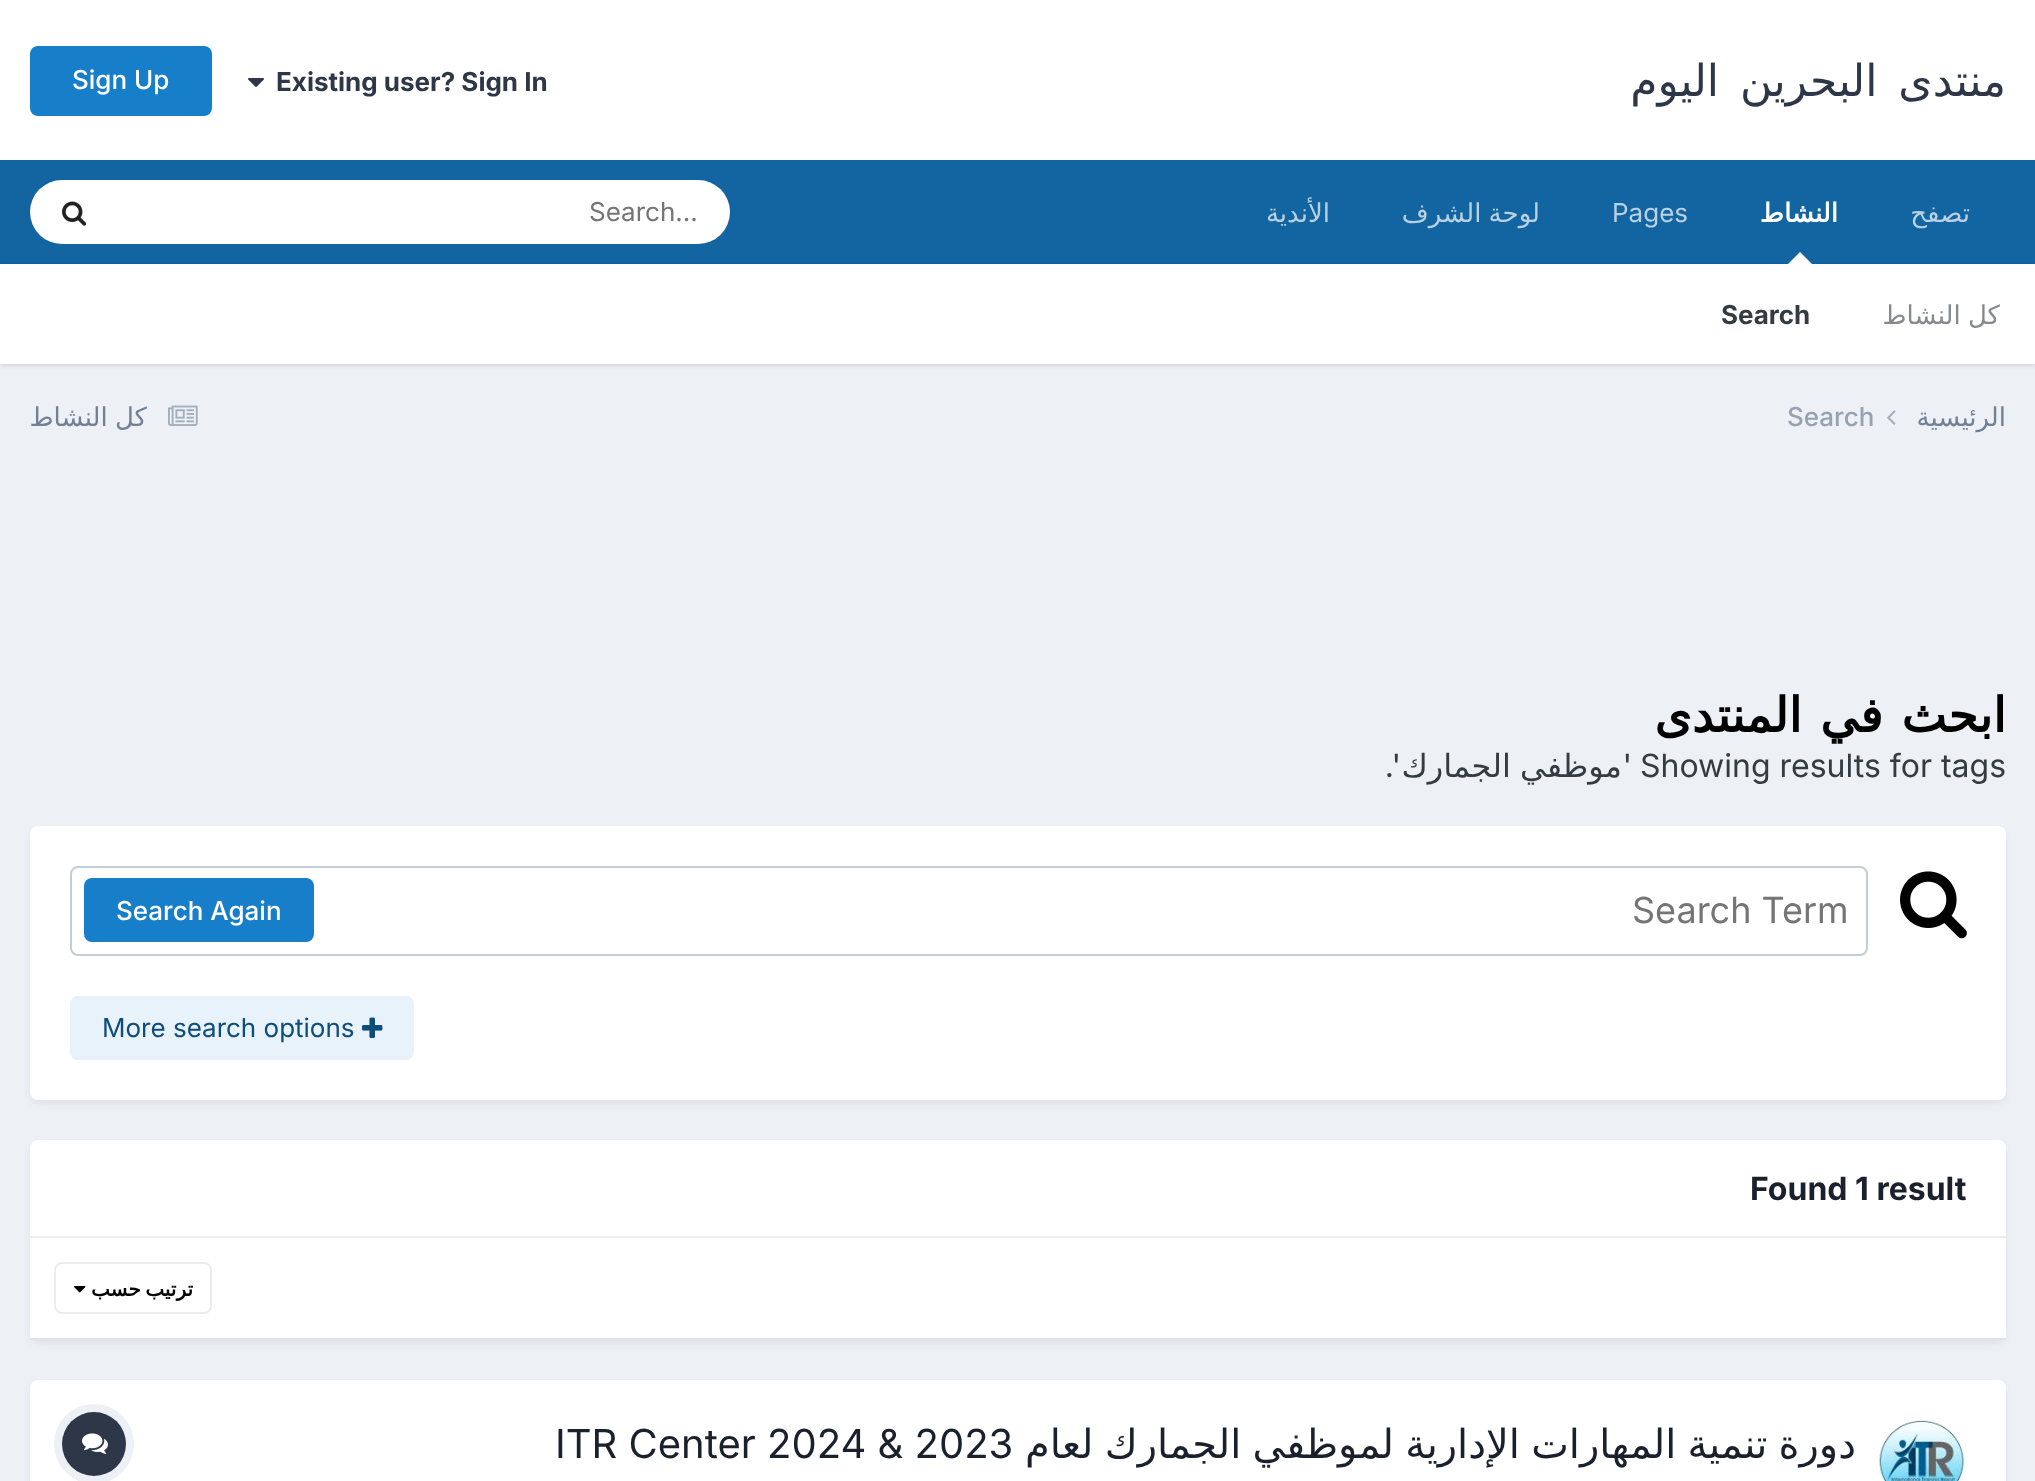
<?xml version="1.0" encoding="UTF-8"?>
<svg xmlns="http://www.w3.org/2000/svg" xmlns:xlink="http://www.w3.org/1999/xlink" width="2035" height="1481">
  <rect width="100%" height="100%" fill="#edf0f4" />
  <rect width="2035" height="160" fill="#ffffff" />
  <image x="248" y="78" width="16" height="9" xlink:href="image1.png" />
  <rect x="30" y="46" width="182" height="70" rx="8" fill="#177ec9" />
  <rect y="160" width="2035" height="104" fill="#1265a1" />
  <rect y="266" width="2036" height="100" fill="#000000" fill-opacity="0.1" filter="blur(2px)" />
  <path d="M 1812 264 h -24 l 12 -12 z" fill="#ffffff" />
  <rect x="30" y="180" width="700" height="64" rx="32" fill="#ffffff" />
  <image x="62" y="201" width="25" height="25" xlink:href="image2.png" />
  <rect y="264" width="2035" height="100" fill="#ffffff" />
  <image x="1887" y="410" width="9" height="15" xlink:href="image3.png" />
  <image x="168" y="405" width="30" height="21" xlink:href="image4.png" />
  <rect x="32" y="832" width="1972" height="270" rx="6" fill="#2d3748" fill-opacity="0.1" filter="blur(4px)" />
  <rect x="30" y="826" width="1976" height="274" rx="8" fill="#ffffff" />
  <image x="1900" y="871" width="67" height="68" xlink:href="image5.png" />
  <rect x="71" y="867" width="1796" height="88" rx="7" fill="none" stroke="#c6ccd5" stroke-width="2" />
  <rect x="84" y="878" width="230" height="64" rx="8" fill="#177ec9" />
  <rect x="70" y="996" width="344" height="64" rx="8" fill="#e8f2fa" />
  <image x="362" y="1017" width="21" height="21" xlink:href="image6.png" />
  <rect x="32" y="1146" width="1972" height="196" rx="6" fill="#2d3748" fill-opacity="0.1" filter="blur(4px)" />
  <path d="M 38 1140 h 1960 c 4.5 0 8 3.5 8 8 v 90 h -1976 v -90 c 0 -4.5 3.5 -8 8 -8 z" fill="#ffffff" />
  <rect x="30" y="1236" width="1976" height="2" fill="#eaecef" />
  <rect x="30" y="1238" width="1976" height="100" fill="#ffffff" />
  <rect x="30" y="1338" width="1976" height="2" fill="#e1e2e3" />
  <image x="74" y="1286" width="12" height="7" xlink:href="image7.png" />
  <rect x="55" y="1263" width="156" height="50" rx="7" fill="none" stroke="#ebecec" stroke-width="2" />
  <rect x="32" y="1386" width="1972" height="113" rx="6" fill="#2d3748" fill-opacity="0.1" filter="blur(4px)" />
  <rect x="30" y="1380" width="1976" height="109" rx="8" fill="#ffffff" />
  <image x="1878" y="1420" width="88" height="61" xlink:href="image8.png" />
  <circle cx="94" cy="1444" r="36" fill="none" stroke="#edf0f4" stroke-width="8" />
  <circle cx="94" cy="1444" r="32" fill="#2d3748" />
  <image x="82" y="1433" width="26" height="21" xlink:href="image9.png" />
  <text x="2006" y="96" word-spacing="7" style="font-family: DejaVu Sans; font-size: 44px; letter-spacing: -1px; direction: rtl; fill: #2d3748">منتدى البحرين اليوم</text>
  <text x="276" y="91" style="font-family: Inter; font-size: 26px; font-weight: bold; fill: #2d3748">Existing user? Sign In</text>
  <text x="72" y="89" style="font-family: Inter; font-size: 26px; font-weight: 500; fill: #ffffff">Sign Up</text>
  <text x="1838" y="222" style="font-family: DejaVu Sans; font-size: 26px; font-weight: bold; direction: rtl; fill: #ffffff">النشاط</text>
  <text x="2000" y="324" word-spacing="-1" style="font-family: DejaVu Sans; font-size: 26px; direction: rtl; fill: #868a8d">كل النشاط</text>
  <text x="1721" y="324" style="font-family: Inter; font-size: 26px; font-weight: bold; fill: #353c41">Search</text>
  <text x="1612" y="222" style="font-family: Inter; font-size: 26px; fill: #b8d1e3">Pages</text>
  <text x="1540" y="222" word-spacing="-1" style="font-family: DejaVu Sans; font-size: 26px; direction: rtl; fill: #b8d1e3">لوحة الشرف</text>
  <text x="1330" y="222" style="font-family: DejaVu Sans; font-size: 26px; direction: rtl; fill: #b8d1e3">الأندية</text>
  <text x="1970" y="222" style="font-family: DejaVu Sans; font-size: 26px; direction: rtl; fill: #b8d1e3">تصفح</text>
  <text x="589" y="221" style="font-family: Inter; font-size: 26px; fill: #757575">Search...</text>
  <text x="2006" y="426" style="font-family: DejaVu Sans; font-size: 26px; direction: rtl; fill: #718096">الرئيسية</text>
  <text x="1787" y="426" style="font-family: Inter; font-size: 26px; font-weight: 500; fill: #96a2b2">Search</text>
  <text x="147" y="426" word-spacing="-1" style="font-family: DejaVu Sans; font-size: 26px; direction: rtl; fill: #718096">كل النشاط</text>
  <text x="2006" y="732" word-spacing="3" style="font-family: DejaVu Sans; font-size: 48px; font-weight: bold; letter-spacing: -1px; direction: rtl; fill: #000000">ابحث في المنتدى</text>
  <text x="1640" y="777" style="font-family: Inter; font-size: 32px; fill: #353c41">Showing results for tags</text>
  <text x="1632" y="777" style="font-family: Inter; font-size: 32px; direction: rtl; fill: #353c41">'</text>
  <text x="1622" y="777" word-spacing="-1" style="font-family: DejaVu Sans; font-size: 32px; direction: rtl; fill: #353c41">موظفي الجمارك</text>
  <text x="1401" y="777" style="font-family: Inter; font-size: 32px; direction: rtl; fill: #353c41">'.</text>
  <text x="1632" y="923" style="font-family: Inter; font-size: 36px; fill: #757575">Search Term</text>
  <text x="116" y="920" style="font-family: Inter; font-size: 26px; font-weight: 500; fill: #ffffff">Search Again</text>
  <text x="102" y="1037" style="font-family: Inter; font-size: 26px; fill: #0e4c79">More search options</text>
  <text x="1750" y="1200" style="font-family: Inter; font-size: 32px; font-weight: bold; fill: #1a202c">Found 1 result</text>
  <text x="193" y="1296" word-spacing="-2" style="font-family: DejaVu Sans; font-size: 20px; font-weight: bold; direction: rtl; fill: #000000">ترتيب حسب</text>
  <text x="1856" y="1458" word-spacing="-1.5" style="font-family: DejaVu Sans; font-size: 40px; direction: rtl; fill: #1a202c">دورة تنمية المهارات الإدارية لموظفي الجمارك لعام</text>
  <text x="555" y="1458" style="font-family: Inter; font-size: 40px; fill: #1a202c">ITR Center 2024 &amp; 2023</text>
</svg>
